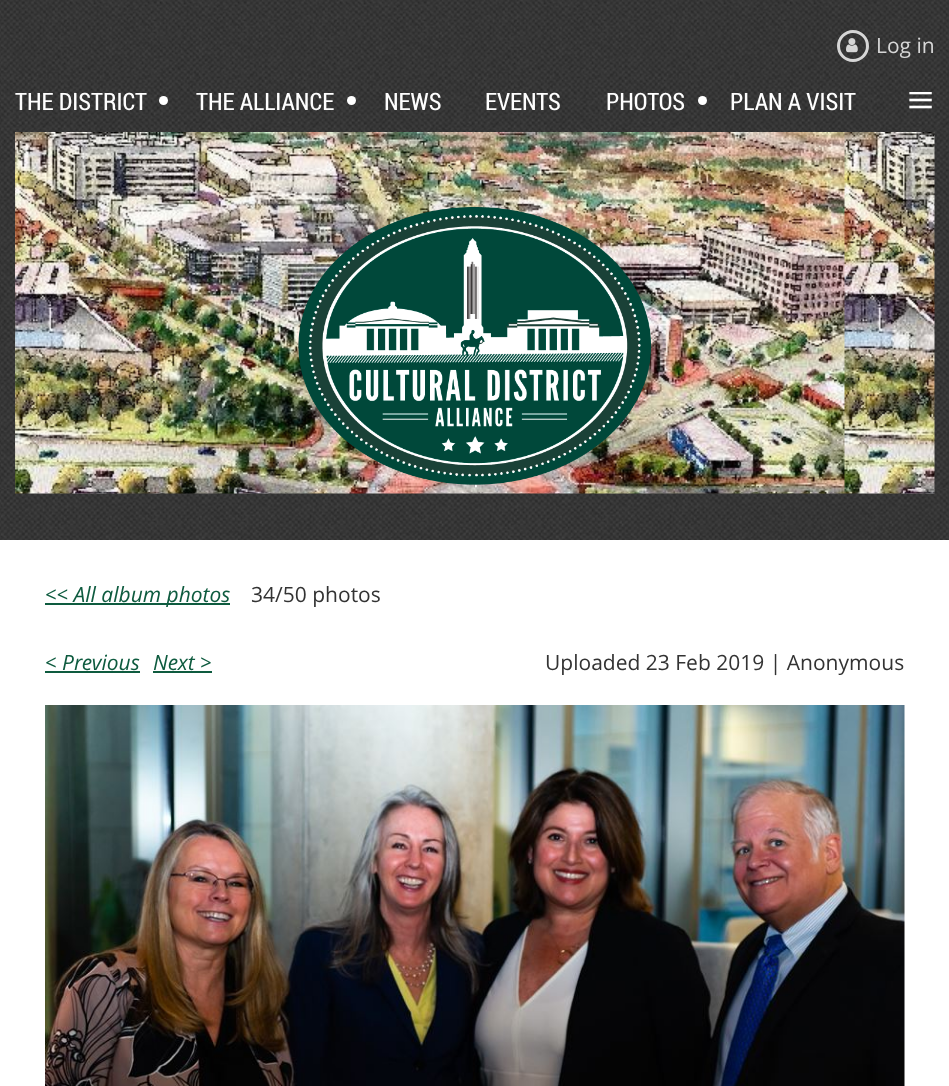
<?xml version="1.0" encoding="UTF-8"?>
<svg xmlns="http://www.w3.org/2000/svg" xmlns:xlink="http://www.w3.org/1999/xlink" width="949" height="1086">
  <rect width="100%" height="100%" fill="#ffffff" />
  <image x="0" y="0" width="949" height="540" xlink:href="image1.png" />
  <circle cx="853" cy="46" r="14.5" fill="none" stroke="#ffffff" stroke-opacity="0.8" stroke-width="3" />
  <image x="846" y="38" width="12" height="15" xlink:href="image2.png" />
  <circle cx="163.5" cy="100.5" r="4.5" fill="#ffffff" />
  <circle cx="351.5" cy="100.5" r="4.5" fill="#ffffff" />
  <circle cx="702.5" cy="100.5" r="4.5" fill="#ffffff" />
  <image x="15" y="132" width="920" height="362" xlink:href="image3.png" />
  <image x="298" y="207" width="353" height="281" xlink:href="image4.png" />
  <rect x="45" y="603" width="185" height="2" fill="#0e5b3f" />
  <rect x="45" y="671" width="95" height="2" fill="#0e5b3f" />
  <rect x="153" y="671" width="59" height="2" fill="#0e5b3f" />
  <image x="45" y="705" width="860" height="381" xlink:href="image5.png" />
  <text x="876" y="53" style="font-family: Open Sans; font-size: 21px; fill: #d7d7d7">Log in</text>
  <text x="15" y="110" style="font-family: Roboto Condensed; font-size: 24px; fill: #fefefe">THE DISTRICT</text>
  <text x="196" y="110" style="font-family: Roboto Condensed; font-size: 24px; fill: #fefefe">THE ALLIANCE</text>
  <text x="384" y="110" style="font-family: Roboto Condensed; font-size: 24px; fill: #fefefe">NEWS</text>
  <text x="485" y="110" style="font-family: Roboto Condensed; font-size: 24px; fill: #fefefe">EVENTS</text>
  <text x="606" y="110" style="font-family: Roboto Condensed; font-size: 24px; fill: #fefefe">PHOTOS</text>
  <text x="730" y="110" style="font-family: Roboto Condensed; font-size: 24px; fill: #fefefe">PLAN A VISIT</text>
  <text x="907" y="116" style="font-family: Liberation Serif; font-size: 48px; fill: #fefefe">≡</text>
  <text x="45" y="602" style="font-family: Open Sans; font-size: 21px; font-style: italic; fill: #0e5b3f">&lt;&lt; All album photos</text>
  <text x="251" y="602" style="font-family: Open Sans; font-size: 21px; fill: #333333">34/50 photos</text>
  <text x="45" y="670" style="font-family: Open Sans; font-size: 21px; font-style: italic; fill: #0e5b3f">&lt; Previous</text>
  <text x="153" y="670" style="font-family: Open Sans; font-size: 21px; font-style: italic; fill: #0e5b3f">Next &gt;</text>
  <text x="545" y="670" style="font-family: Open Sans; font-size: 21px; fill: #333333">Uploaded 23 Feb 2019 | Anonymous</text>
</svg>
